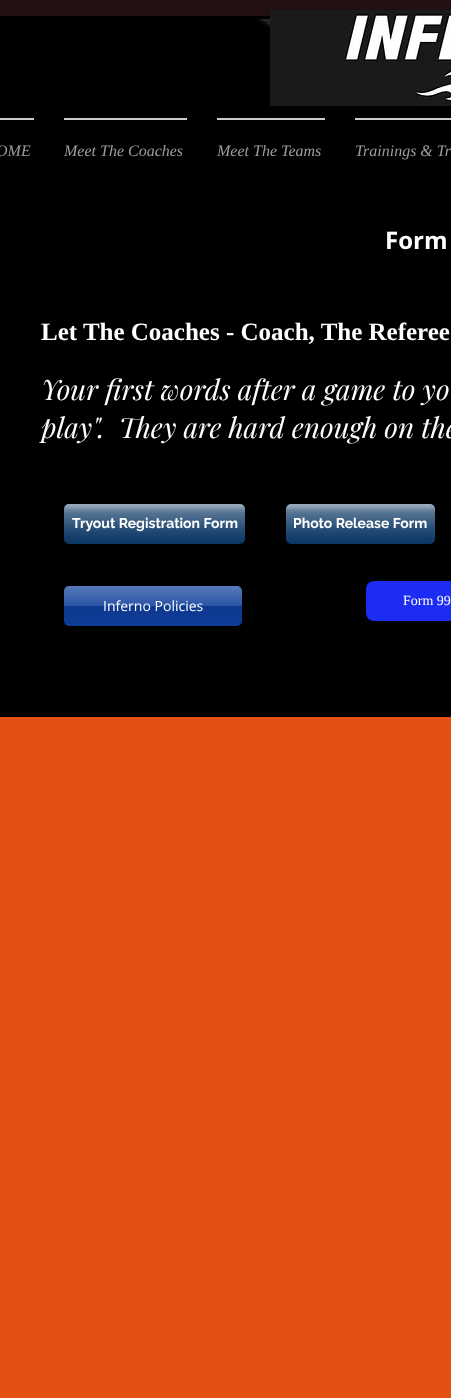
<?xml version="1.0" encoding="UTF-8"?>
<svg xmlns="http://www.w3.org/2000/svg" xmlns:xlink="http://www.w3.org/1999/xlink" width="451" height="1398">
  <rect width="100%" height="100%" fill="#e35112" />
  <rect y="19" width="451" height="698" fill="#000000" />
  <rect width="451" height="16" fill="#231111" />
  <rect y="16" width="270" height="3" fill="#000000" />
  <image x="270" y="10" width="181" height="96" xlink:href="image1.png" />
  <image x="255" y="19" width="15" height="9" xlink:href="image2.png" />
  <rect y="118" width="34" height="2" fill="#cccccc" />
  <rect x="64" y="118" width="123" height="2" fill="#cccccc" />
  <rect x="217" y="118" width="108" height="2" fill="#cccccc" />
  <rect x="355" y="118" width="96" height="2" fill="#cccccc" />
  <rect x="64" y="504" width="181" height="40" rx="5" fill="#002e5d" />
  <image x="64" y="504" width="181" height="40" xlink:href="image3.png" />
  <rect x="286" y="504" width="149" height="40" rx="5" fill="#002e5d" />
  <image x="286" y="504" width="149" height="40" xlink:href="image4.png" />
  <rect x="64" y="586" width="178" height="40" rx="5" fill="#0f3e9b" />
  <image x="64" y="586" width="178" height="40" xlink:href="image5.png" />
  <rect x="366" y="581" width="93" height="40" rx="8" fill="#1d2cf3" />
  <text x="-4" y="156" style="font-family: Liberation Serif; font-size: 16px; font-style: italic; fill: #9e9e9e">OME</text>
  <text x="64" y="156" style="font-family: Liberation Serif; font-size: 16px; font-style: italic; fill: #9e9e9e">Meet The Coaches</text>
  <text x="217" y="156" style="font-family: Liberation Serif; font-size: 16px; font-style: italic; fill: #9e9e9e">Meet The Teams</text>
  <text x="355" y="156" style="font-family: Liberation Serif; font-size: 16px; font-style: italic; fill: #9e9e9e">Trainings &amp; Tr</text>
  <text x="385" y="249" style="font-family: Open Sans; font-size: 24px; font-weight: bold; fill: #ffffff">Form</text>
  <text x="41" y="340" style="font-family: Liberation Serif; font-size: 25px; font-weight: bold; fill: #ffffff">Let The Coaches - Coach, The Referee</text>
  <text x="41" y="400" style="font-family: Playfair Display; font-size: 28px; font-style: italic; fill: #ffffff">Your first words after a game to yo</text>
  <text x="41" y="438" style="font-family: Playfair Display; font-size: 28px; font-style: italic; fill: #ffffff" xml:space="preserve">play".  They are hard enough on the</text>
  <text x="72" y="528" style="font-family: Raleway; font-size: 14px; font-weight: bold; fill: #ffffff">Tryout Registration Form</text>
  <text x="293" y="528" style="font-family: Raleway; font-size: 14px; font-weight: bold; fill: #ffffff">Photo Release Form</text>
  <text x="103" y="611" style="font-family: Open Sans; font-size: 14px; fill: #ffffff">Inferno Policies</text>
  <text x="403" y="605" style="font-family: Liberation Serif; font-size: 14px; fill: #ffffff">Form 99</text>
</svg>
